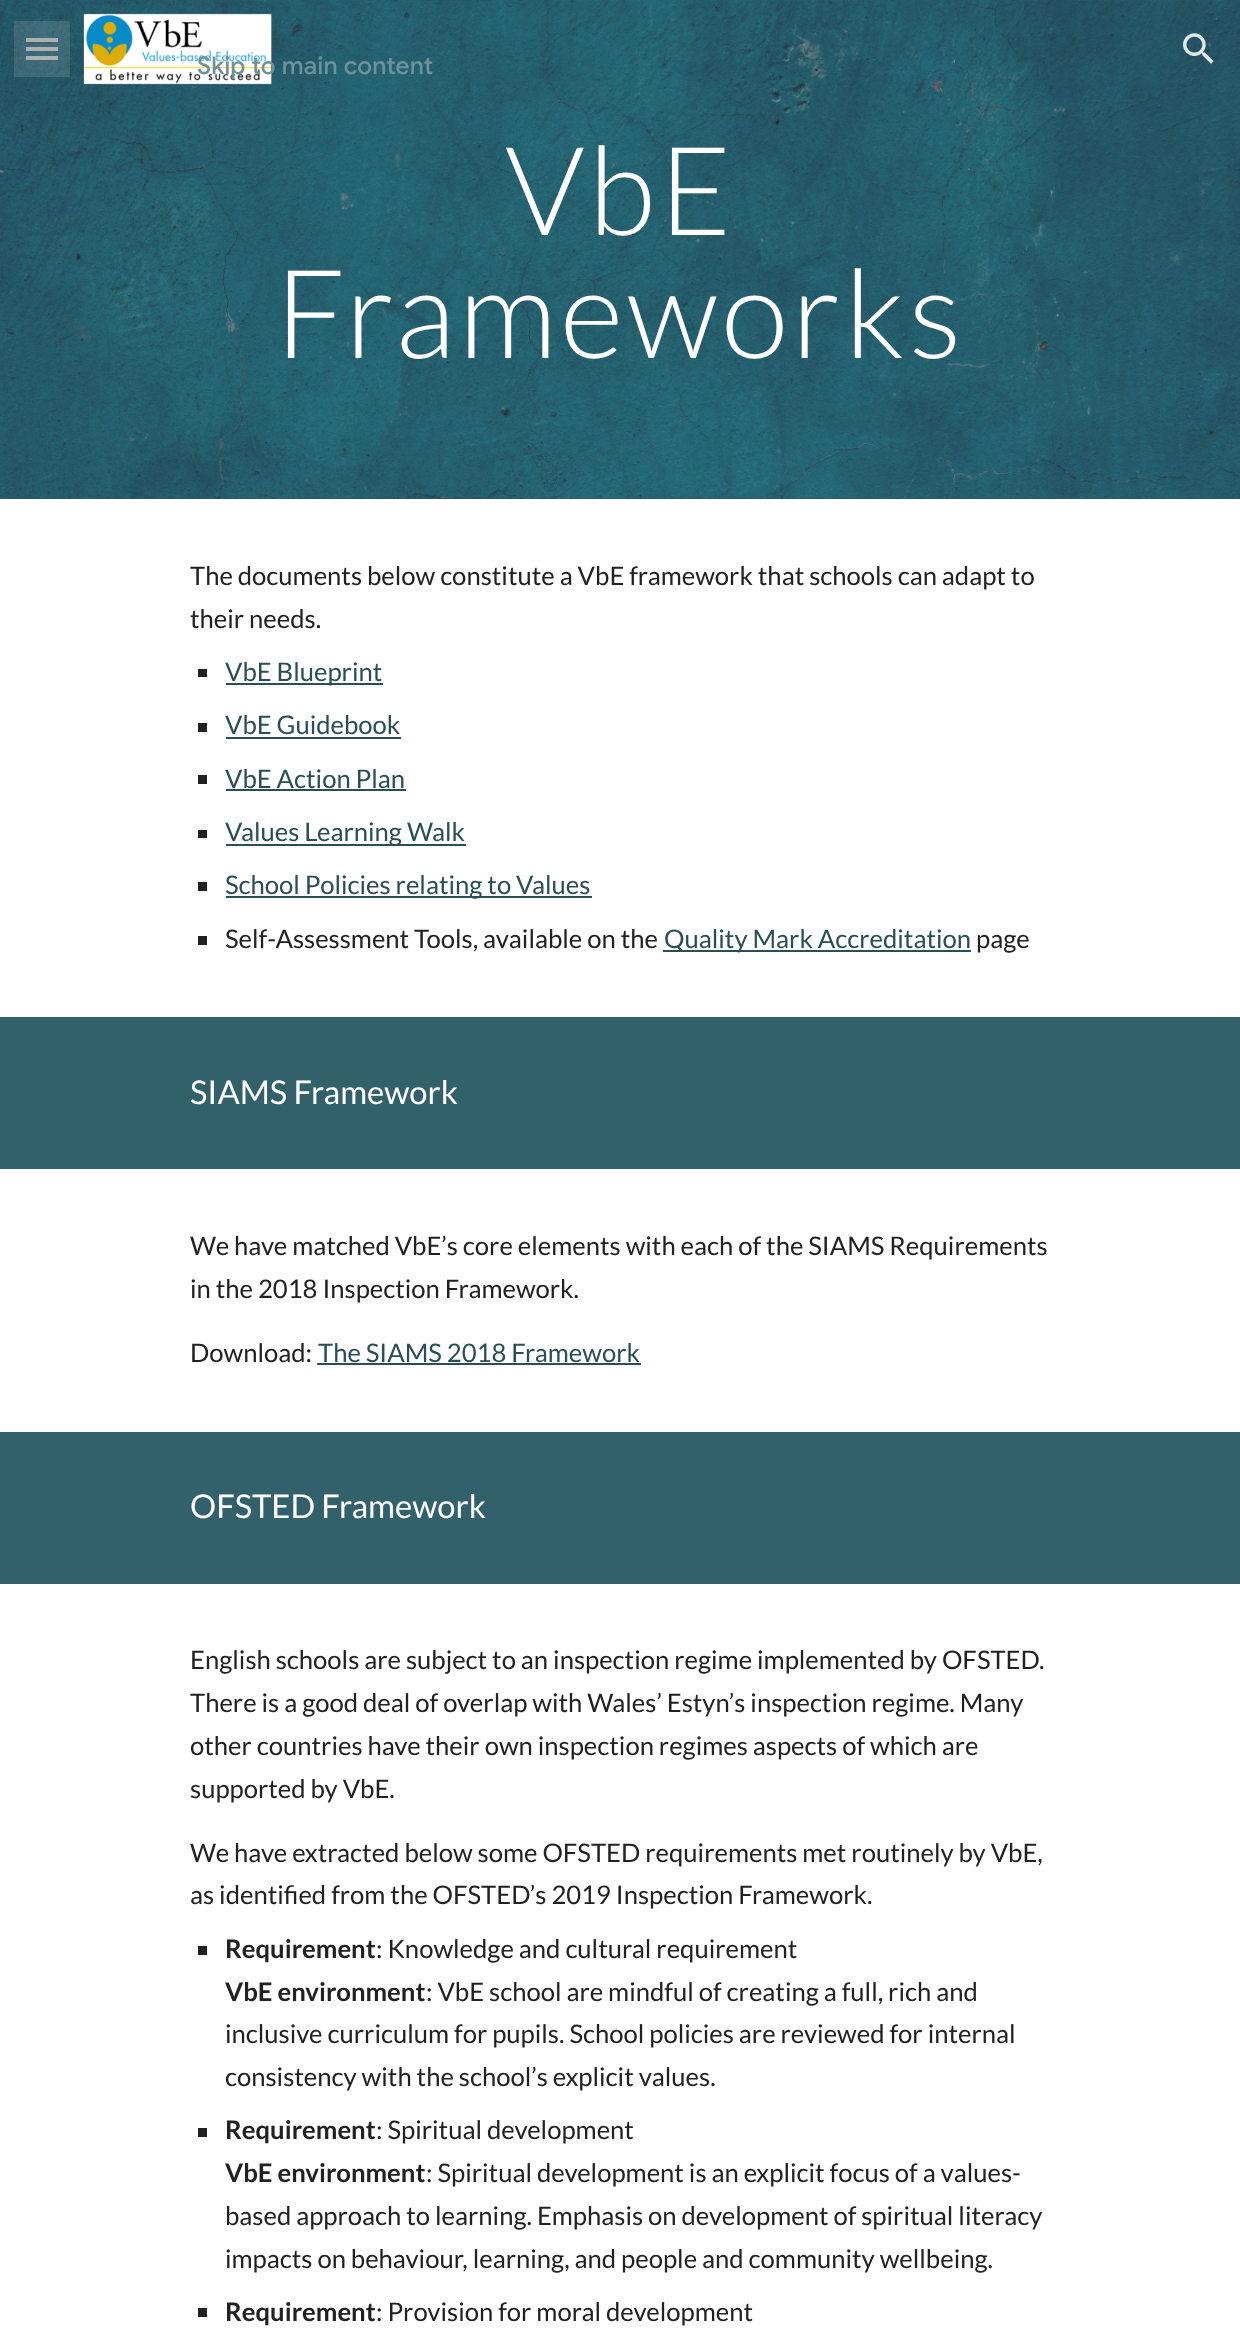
<?xml version="1.0" encoding="UTF-8"?>
<svg xmlns="http://www.w3.org/2000/svg" xmlns:xlink="http://www.w3.org/1999/xlink" width="1240" height="2341">
  <rect width="100%" height="100%" fill="#ffffff" />
  <rect y="498" width="1240" height="1" fill="#2f545c" />
  <image x="0" y="0" width="1240" height="499" xlink:href="image3.png" />
  <rect x="26" y="38" width="32" height="4" fill="#b2b2b2" fill-opacity="0.88" />
  <rect x="26" y="47" width="32" height="4" fill="#b2b2b2" fill-opacity="0.88" />
  <rect x="26" y="56" width="32" height="4" fill="#b2b2b2" fill-opacity="0.88" />
  <rect x="14" y="21" width="56" height="56" fill="#ffffff" fill-opacity="0.12" />
  <image x="83" y="13" width="189" height="72" xlink:href="image1.png" />
  <image x="1183" y="33" width="31" height="31" xlink:href="image2.png" />
  <rect x="198" y="669" width="9" height="8" fill="#212121" />
  <rect x="226" y="683" width="157" height="2" fill="#294e56" />
  <rect x="198" y="723" width="9" height="9" fill="#212121" />
  <rect x="226" y="737" width="175" height="2" fill="#294e56" />
  <rect x="198" y="775" width="9" height="9" fill="#212121" />
  <rect x="226" y="789" width="180" height="2" fill="#294e56" />
  <rect x="198" y="830" width="9" height="8" fill="#212121" />
  <rect x="226" y="844" width="240" height="2" fill="#294e56" />
  <rect x="198" y="882" width="9" height="9" fill="#212121" />
  <rect x="226" y="896" width="366" height="2" fill="#294e56" />
  <rect x="198" y="936" width="9" height="9" fill="#212121" />
  <rect x="663" y="950" width="308" height="2" fill="#294e56" />
  <rect y="1017" width="1240" height="152" fill="#33616b" />
  <rect x="317" y="1363" width="324" height="2" fill="#294e56" />
  <rect y="1432" width="1240" height="152" fill="#33616b" />
  <rect x="198" y="1946" width="9" height="9" fill="#212121" />
  <rect x="198" y="2128" width="9" height="9" fill="#212121" />
  <rect x="198" y="2308" width="9" height="9" fill="#212121" />
  <text x="197" y="74" style="font-family: Google Sans; font-size: 24.5px; font-weight: 500; letter-spacing: 0.25px; fill: #6c939a">Skip to main content</text>
  <text x="505" y="235" style="font-family: Lato; font-size: 123.5px; font-weight: 300; letter-spacing: 3.5px; fill: #ffffff">VbE</text>
  <text x="275" y="358" style="font-family: Lato; font-size: 123.5px; font-weight: 300; letter-spacing: 3.5px; fill: #ffffff">Frameworks</text>
  <text x="190" y="585" style="font-family: Lato; font-size: 25.65px; fill: #212121">The documents below constitute a VbE framework that schools can adapt to</text>
  <text x="190" y="628" style="font-family: Lato; font-size: 25.65px; fill: #212121">their needs.</text>
  <text x="225" y="681" style="font-family: Lato; font-size: 25.65px; fill: #294e56">VbE Blueprint</text>
  <text x="225" y="734" style="font-family: Lato; font-size: 25.65px; fill: #294e56">VbE Guidebook</text>
  <text x="225" y="788" style="font-family: Lato; font-size: 25.65px; fill: #294e56">VbE Action Plan</text>
  <text x="225" y="841" style="font-family: Lato; font-size: 25.65px; fill: #294e56">Values Learning Walk</text>
  <text x="225" y="894" style="font-family: Lato; font-size: 25.65px; fill: #294e56">School Policies relating to Values</text>
  <text x="225" y="948" style="font-family: Lato; font-size: 25.65px; fill: #212121">Self-Assessment Tools, available on the</text>
  <text x="664" y="948" style="font-family: Lato; font-size: 25.65px; fill: #294e56">Quality Mark Accreditation</text>
  <text x="976" y="948" style="font-family: Lato; font-size: 25.65px; fill: #212121">page</text>
  <text x="190" y="1104" style="font-family: Lato; font-size: 32.75px; fill: #ffffff">SIAMS Framework</text>
  <text x="190" y="1255" style="font-family: Lato; font-size: 25.65px; fill: #212121">We have matched VbE’s core elements with each of the SIAMS Requirements</text>
  <text x="190" y="1298" style="font-family: Lato; font-size: 25.65px; fill: #212121">in the 2018 Inspection Framework.</text>
  <text x="190" y="1362" style="font-family: Lato; font-size: 25.65px; fill: #212121">Download:</text>
  <text x="318" y="1362" style="font-family: Lato; font-size: 25.65px; fill: #294e56">The SIAMS 2018 Framework</text>
  <text x="190" y="1518" style="font-family: Lato; font-size: 32.75px; fill: #ffffff">OFSTED Framework</text>
  <text x="190" y="1669" style="font-family: Lato; font-size: 25.65px; fill: #212121">English schools are subject to an inspection regime implemented by OFSTED.</text>
  <text x="190" y="1712" style="font-family: Lato; font-size: 25.65px; fill: #212121">There is a good deal of overlap with Wales’ Estyn’s inspection regime. Many</text>
  <text x="190" y="1755" style="font-family: Lato; font-size: 25.65px; fill: #212121">other countries have their own inspection regimes aspects of which are</text>
  <text x="190" y="1798" style="font-family: Lato; font-size: 25.65px; fill: #212121">supported by VbE.</text>
  <text x="190" y="1862" style="font-family: Lato; font-size: 25.65px; fill: #212121">We have extracted below some OFSTED requirements met routinely by VbE,</text>
  <text x="190" y="1904" style="font-family: Lato; font-size: 25.65px; fill: #212121">as identified from the OFSTED’s 2019 Inspection Framework.</text>
  <text x="225" y="1958" style="font-family: Lato; font-size: 25.65px; font-weight: bold; fill: #212121">Requirement</text>
  <text x="376" y="1958" style="font-family: Lato; font-size: 25.65px; fill: #212121">: Knowledge and cultural requirement</text>
  <text x="225" y="2001" style="font-family: Lato; font-size: 25.65px; font-weight: bold; fill: #212121">VbE environment</text>
  <text x="426" y="2001" style="font-family: Lato; font-size: 25.65px; fill: #212121">: VbE school are mindful of creating a full, rich and</text>
  <text x="225" y="2043" style="font-family: Lato; font-size: 25.65px; fill: #212121">inclusive curriculum for pupils. School policies are reviewed for internal</text>
  <text x="225" y="2086" style="font-family: Lato; font-size: 25.65px; fill: #212121">consistency with the school’s explicit values.</text>
  <text x="225" y="2139" style="font-family: Lato; font-size: 25.65px; font-weight: bold; fill: #212121">Requirement</text>
  <text x="376" y="2139" style="font-family: Lato; font-size: 25.65px; fill: #212121">: Spiritual development</text>
  <text x="225" y="2182" style="font-family: Lato; font-size: 25.65px; font-weight: bold; fill: #212121">VbE environment</text>
  <text x="426" y="2182" style="font-family: Lato; font-size: 25.65px; fill: #212121">: Spiritual development is an explicit focus of a values-</text>
  <text x="225" y="2225" style="font-family: Lato; font-size: 25.65px; fill: #212121">based approach to learning. Emphasis on development of spiritual literacy</text>
  <text x="225" y="2268" style="font-family: Lato; font-size: 25.65px; fill: #212121">impacts on behaviour, learning, and people and community wellbeing.</text>
  <text x="225" y="2321" style="font-family: Lato; font-size: 25.65px; font-weight: bold; fill: #212121">Requirement</text>
  <text x="376" y="2321" style="font-family: Lato; font-size: 25.65px; fill: #212121">: Provision for moral development</text>
</svg>
